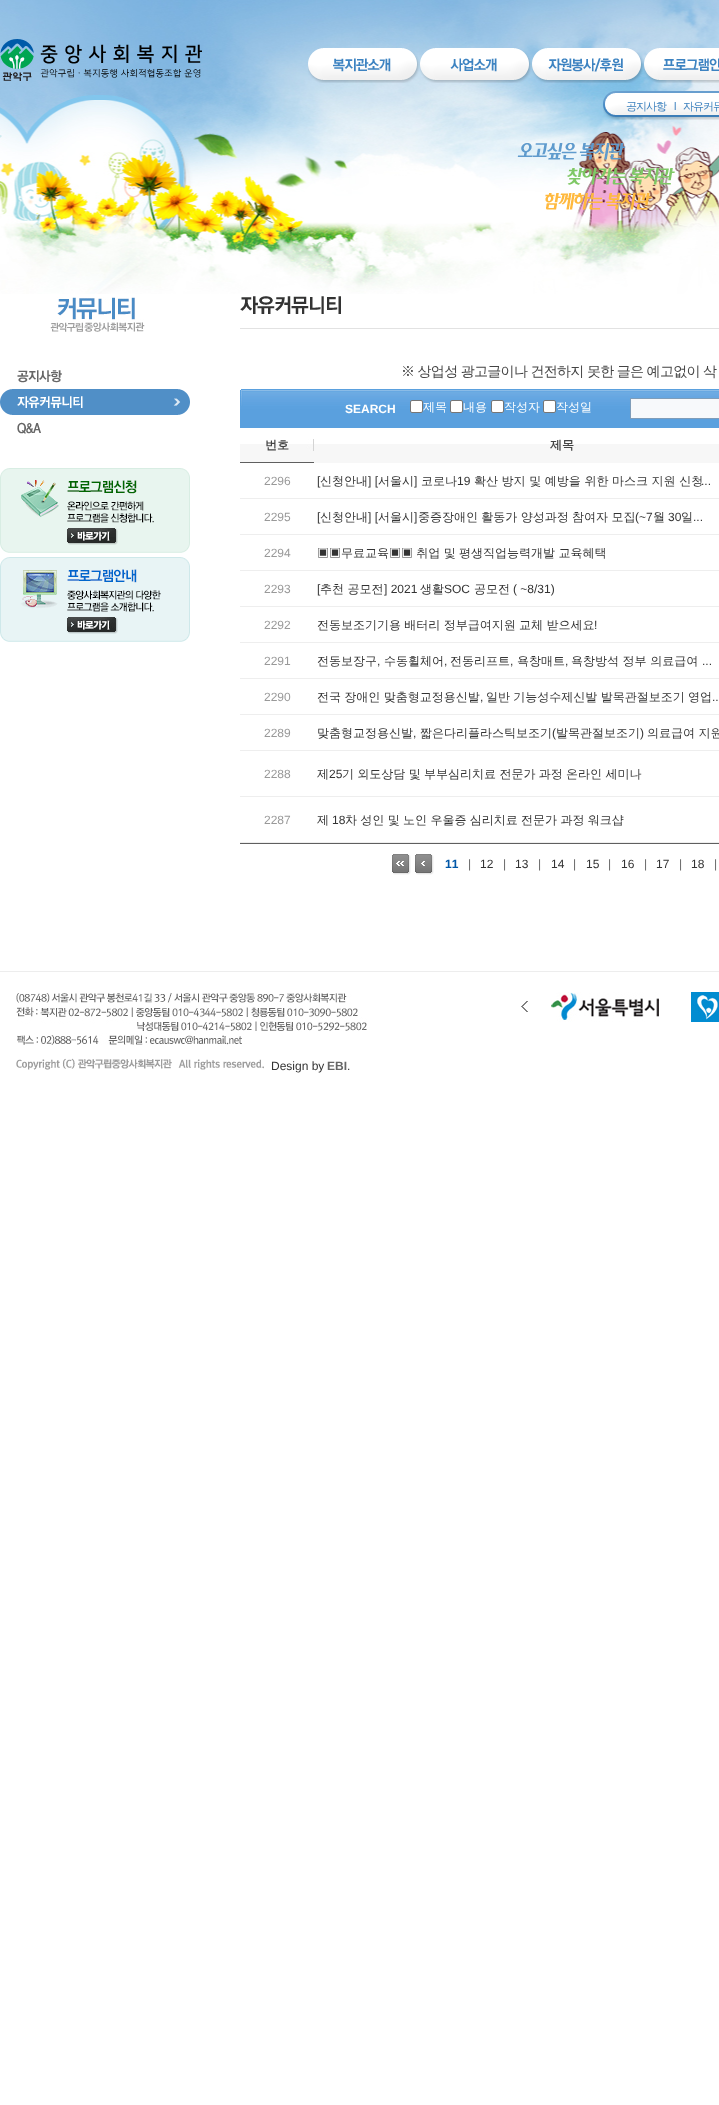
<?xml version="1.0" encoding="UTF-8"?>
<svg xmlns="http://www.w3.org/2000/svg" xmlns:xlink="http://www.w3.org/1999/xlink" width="719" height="2105">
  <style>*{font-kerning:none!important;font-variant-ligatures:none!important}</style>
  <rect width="100%" height="100%" fill="#ffffff" />
  <image x="0" y="0" width="719" height="294" xlink:href="image1.png" />
  <image x="0" y="39" width="202" height="42" xlink:href="image2.png" />
  <image x="308" y="48" width="112" height="35" xlink:href="image3.png" />
  <image x="420" y="48" width="112" height="35" xlink:href="image4.png" />
  <image x="532" y="48" width="112" height="35" xlink:href="image5.png" />
  <image x="644" y="48" width="75" height="35" xlink:href="image6.png" />
  <image x="603" y="91" width="116" height="29" xlink:href="image7.png" />
  <image x="517" y="143" width="109" height="17" xlink:href="image8.png" />
  <image x="567" y="168" width="108" height="17" xlink:href="image9.png" />
  <image x="545" y="193" width="107" height="17" xlink:href="image10.png" />
  <image x="50" y="297" width="95" height="35" xlink:href="image11.png" />
  <image x="17" y="370" width="45" height="13" xlink:href="image12.png" />
  <image x="0" y="389" width="190" height="26" xlink:href="image13.png" />
  <image x="17" y="422" width="24" height="12" xlink:href="image14.png" />
  <image x="0" y="468" width="190" height="85" xlink:href="image15.png" />
  <image x="0" y="557" width="190" height="85" xlink:href="image16.png" />
  <rect x="240" y="328" width="479" height="1" fill="#e2e2e2" />
  <image x="240" y="296" width="101" height="18" xlink:href="image17.png" />
  <image x="240" y="389" width="479" height="39" xlink:href="image18.png" />
  <image x="240" y="389" width="3" height="17" xlink:href="image19.png" />
  <rect x="410.5" y="400.5" width="12" height="12" rx="1.5" fill="#ffffff" stroke="#767676" />
  <rect x="450.5" y="400.5" width="12" height="12" rx="1.5" fill="#ffffff" stroke="#767676" />
  <rect x="491.5" y="400.5" width="12" height="12" rx="1.5" fill="#ffffff" stroke="#767676" />
  <rect x="543.5" y="400.5" width="12" height="12" rx="1.5" fill="#ffffff" stroke="#767676" />
  <rect x="630.5" y="398.5" width="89" height="20" fill="#f7f9fb" stroke="#7f9db9" />
  <image x="240" y="439" width="74" height="24" xlink:href="image20.png" />
  <rect x="314" y="444" width="405" height="19" fill="#f7f7f7" />
  <rect x="240" y="498" width="479" height="1" fill="#eeeeee" />
  <rect x="240" y="534" width="479" height="1" fill="#eeeeee" />
  <rect x="240" y="570" width="479" height="1" fill="#eeeeee" />
  <rect x="240" y="606" width="479" height="1" fill="#eeeeee" />
  <rect x="240" y="642" width="479" height="1" fill="#eeeeee" />
  <rect x="240" y="678" width="479" height="1" fill="#eeeeee" />
  <rect x="240" y="714" width="479" height="1" fill="#eeeeee" />
  <rect x="240" y="750" width="479" height="1" fill="#eeeeee" />
  <rect x="240" y="796" width="479" height="1" fill="#eeeeee" />
  <rect x="240" y="842" width="479" height="1" fill="#eeeeee" />
  <rect x="240" y="843" width="479" height="1" fill="#5f5f5f" />
  <image x="392" y="854" width="19" height="21" xlink:href="image21.png" />
  <image x="415" y="854" width="19" height="21" xlink:href="image22.png" />
  <rect y="971" width="719" height="1" fill="#ededed" />
  <image x="521" y="1001" width="7" height="11" xlink:href="image23.png" />
  <image x="551" y="992" width="108" height="30" xlink:href="image24.png" />
  <image x="691" y="992" width="28" height="30" xlink:href="image25.png" />
  <image x="16" y="993" width="351" height="52" xlink:href="image26.png" />
  <image x="16" y="1058" width="248" height="12" xlink:href="image27.png" />
  <text x="626" y="110" style="font-family: WenQuanYi Zen Hei; font-size: 11px; font-weight: 500; letter-spacing: -1px; fill: #3c81be">공지사항</text>
  <text x="674" y="110" style="font-family: Liberation Sans; font-size: 11px; letter-spacing: -1px; fill: #3c81be">l</text>
  <text x="683" y="110" style="font-family: WenQuanYi Zen Hei; font-size: 11px; font-weight: 500; letter-spacing: -1px; fill: #3c81be">자유커뮤</text>
  <text x="401" y="376" word-spacing="-0.25" style="font-family: WenQuanYi Zen Hei; font-size: 14px; font-weight: 500; letter-spacing: -0.7px; fill: #444444">※ 상업성 광고글이나 건전하지 못한 글은 예고없이 삭</text>
  <text x="345" y="413" style="font-family: Liberation Sans; font-size: 12px; font-weight: bold; fill: #ffffff">SEARCH</text>
  <text x="423" y="411" style="font-family: WenQuanYi Zen Hei; font-size: 12px; font-weight: 500; fill: #ffffff">제목</text>
  <text x="463" y="411" style="font-family: WenQuanYi Zen Hei; font-size: 12px; font-weight: 500; fill: #ffffff">내용</text>
  <text x="504" y="411" style="font-family: WenQuanYi Zen Hei; font-size: 12px; font-weight: 500; fill: #ffffff">작성자</text>
  <text x="556" y="411" style="font-family: WenQuanYi Zen Hei; font-size: 12px; font-weight: 500; fill: #ffffff">작성일</text>
  <text x="265" y="449" style="font-family: WenQuanYi Zen Hei; font-size: 12px; font-weight: bold; fill: #444444">번호</text>
  <text x="550" y="449" style="font-family: WenQuanYi Zen Hei; font-size: 12px; font-weight: bold; fill: #444444">제목</text>
  <text x="264" y="485" style="font-family: Liberation Sans; font-size: 12px; fill: #999999">2296</text>
  <text x="317" y="485" style="font-family: Liberation Sans; font-size: 12px; fill: #333333">[</text>
  <text x="320" y="485" style="font-family: WenQuanYi Zen Hei; font-size: 12px; font-weight: 500; fill: #333333">신청안내</text>
  <text x="368" y="485" style="font-family: Liberation Sans; font-size: 12px; fill: #333333">] [</text>
  <text x="378" y="485" style="font-family: WenQuanYi Zen Hei; font-size: 12px; font-weight: 500; fill: #333333">서울시</text>
  <text x="414" y="485" style="font-family: Liberation Sans; font-size: 12px; fill: #333333">]</text>
  <text x="421" y="485" style="font-family: WenQuanYi Zen Hei; font-size: 12px; font-weight: 500; fill: #333333">코로나</text>
  <text x="457" y="485" style="font-family: Liberation Sans; font-size: 12px; fill: #333333">19</text>
  <text x="474" y="485" style="font-family: WenQuanYi Zen Hei; font-size: 12px; font-weight: 500; fill: #333333">확산 방지 및 예방을 위한 마스크 지원 신청</text>
  <text x="701" y="485" style="font-family: Liberation Sans; font-size: 12px; fill: #333333">...</text>
  <text x="264" y="521" style="font-family: Liberation Sans; font-size: 12px; fill: #999999">2295</text>
  <text x="317" y="521" style="font-family: Liberation Sans; font-size: 12px; fill: #333333">[</text>
  <text x="320" y="521" style="font-family: WenQuanYi Zen Hei; font-size: 12px; font-weight: 500; fill: #333333">신청안내</text>
  <text x="368" y="521" style="font-family: Liberation Sans; font-size: 12px; fill: #333333">] [</text>
  <text x="378" y="521" style="font-family: WenQuanYi Zen Hei; font-size: 12px; font-weight: 500; fill: #333333">서울시</text>
  <text x="414" y="521" style="font-family: Liberation Sans; font-size: 12px; fill: #333333">]</text>
  <text x="418" y="521" word-spacing="-0.25" style="font-family: WenQuanYi Zen Hei; font-size: 12px; font-weight: 500; fill: #333333">중증장애인 활동가 양성과정 참여자 모집</text>
  <text x="635" y="521" style="font-family: Liberation Sans; font-size: 12px; fill: #333333">(~7</text>
  <text x="653" y="521" style="font-family: WenQuanYi Zen Hei; font-size: 12px; font-weight: 500; fill: #333333">월</text>
  <text x="668" y="521" style="font-family: Liberation Sans; font-size: 12px; fill: #333333">30</text>
  <text x="681" y="521" style="font-family: WenQuanYi Zen Hei; font-size: 12px; font-weight: 500; fill: #333333">일</text>
  <text x="693" y="521" style="font-family: Liberation Sans; font-size: 12px; fill: #333333">...</text>
  <text x="264" y="557" style="font-family: Liberation Sans; font-size: 12px; fill: #999999">2294</text>
  <text x="317" y="557" word-spacing="-0.25" style="font-family: WenQuanYi Zen Hei; font-size: 12px; font-weight: 500; fill: #333333">▣▣무료교육▣▣ 취업 및 평생직업능력개발 교육혜택</text>
  <text x="264" y="593" style="font-family: Liberation Sans; font-size: 12px; fill: #999999">2293</text>
  <text x="317" y="593" style="font-family: Liberation Sans; font-size: 12px; fill: #333333">[</text>
  <text x="320" y="593" style="font-family: WenQuanYi Zen Hei; font-size: 12px; font-weight: 500; fill: #333333">추천 공모전</text>
  <text x="384" y="593" style="font-family: Liberation Sans; font-size: 12px; fill: #333333">] 2021</text>
  <text x="420" y="593" style="font-family: WenQuanYi Zen Hei; font-size: 12px; font-weight: 500; fill: #333333">생활</text>
  <text x="444" y="593" style="font-family: Liberation Sans; font-size: 12px; fill: #333333">SOC</text>
  <text x="474" y="593" style="font-family: WenQuanYi Zen Hei; font-size: 12px; font-weight: 500; fill: #333333">공모전</text>
  <text x="513" y="593" style="font-family: Liberation Sans; font-size: 12px; fill: #333333">( ~8/31)</text>
  <text x="264" y="629" style="font-family: Liberation Sans; font-size: 12px; fill: #999999">2292</text>
  <text x="317" y="629" word-spacing="-0.25" style="font-family: WenQuanYi Zen Hei; font-size: 12px; font-weight: 500; fill: #333333">전동보조기기용 배터리 정부급여지원 교체 받으세요</text>
  <text x="594" y="629" style="font-family: Liberation Sans; font-size: 12px; fill: #333333">!</text>
  <text x="264" y="665" style="font-family: Liberation Sans; font-size: 12px; fill: #999999">2291</text>
  <text x="317" y="665" style="font-family: WenQuanYi Zen Hei; font-size: 12px; font-weight: 500; fill: #333333">전동보장구</text>
  <text x="377" y="665" style="font-family: Liberation Sans; font-size: 12px; fill: #333333">,</text>
  <text x="384" y="665" style="font-family: WenQuanYi Zen Hei; font-size: 12px; font-weight: 500; fill: #333333">수동휠체어</text>
  <text x="444" y="665" style="font-family: Liberation Sans; font-size: 12px; fill: #333333">,</text>
  <text x="450" y="665" style="font-family: WenQuanYi Zen Hei; font-size: 12px; font-weight: 500; fill: #333333">전동리프트</text>
  <text x="510" y="665" style="font-family: Liberation Sans; font-size: 12px; fill: #333333">,</text>
  <text x="517" y="665" style="font-family: WenQuanYi Zen Hei; font-size: 12px; font-weight: 500; fill: #333333">욕창매트</text>
  <text x="565" y="665" style="font-family: Liberation Sans; font-size: 12px; fill: #333333">,</text>
  <text x="571" y="665" style="font-family: WenQuanYi Zen Hei; font-size: 12px; font-weight: 500; fill: #333333">욕창방석 정부 의료급여</text>
  <text x="702" y="665" style="font-family: Liberation Sans; font-size: 12px; fill: #333333">...</text>
  <text x="264" y="701" style="font-family: Liberation Sans; font-size: 12px; fill: #999999">2290</text>
  <text x="317" y="701" word-spacing="-0.25" style="font-family: WenQuanYi Zen Hei; font-size: 12px; font-weight: 500; fill: #333333">전국 장애인 맞춤형교정용신발</text>
  <text x="480" y="701" style="font-family: Liberation Sans; font-size: 12px; fill: #333333">,</text>
  <text x="486" y="701" word-spacing="-0.25" style="font-family: WenQuanYi Zen Hei; font-size: 12px; font-weight: 500; fill: #333333">일반 기능성수제신발 발목관절보조기 영업</text>
  <text x="712" y="701" style="font-family: Liberation Sans; font-size: 12px; fill: #333333">..</text>
  <text x="264" y="737" style="font-family: Liberation Sans; font-size: 12px; fill: #999999">2289</text>
  <text x="317" y="737" style="font-family: WenQuanYi Zen Hei; font-size: 12px; font-weight: 500; fill: #333333">맞춤형교정용신발</text>
  <text x="413" y="737" style="font-family: Liberation Sans; font-size: 12px; fill: #333333">,</text>
  <text x="420" y="737" style="font-family: WenQuanYi Zen Hei; font-size: 12px; font-weight: 500; fill: #333333">짧은다리플라스틱보조기</text>
  <text x="552" y="737" style="font-family: Liberation Sans; font-size: 12px; fill: #333333">(</text>
  <text x="556" y="737" style="font-family: WenQuanYi Zen Hei; font-size: 12px; font-weight: 500; fill: #333333">발목관절보조기</text>
  <text x="640" y="737" style="font-family: Liberation Sans; font-size: 12px; fill: #333333">)</text>
  <text x="647" y="737" style="font-family: WenQuanYi Zen Hei; font-size: 12px; font-weight: 500; fill: #333333">의료급여 지원</text>
  <text x="264" y="778" style="font-family: Liberation Sans; font-size: 12px; fill: #999999">2288</text>
  <text x="317" y="778" style="font-family: WenQuanYi Zen Hei; font-size: 12px; font-weight: 500; fill: #333333">제</text>
  <text x="329" y="778" style="font-family: Liberation Sans; font-size: 12px; fill: #333333">25</text>
  <text x="342" y="778" word-spacing="-0.25" style="font-family: WenQuanYi Zen Hei; font-size: 12px; font-weight: 500; fill: #333333">기 외도상담 및 부부심리치료 전문가 과정 온라인 세미나</text>
  <text x="264" y="824" style="font-family: Liberation Sans; font-size: 12px; fill: #999999">2287</text>
  <text x="317" y="824" style="font-family: WenQuanYi Zen Hei; font-size: 12px; font-weight: 500; fill: #333333">제</text>
  <text x="332" y="824" style="font-family: Liberation Sans; font-size: 12px; fill: #333333">18</text>
  <text x="345" y="824" word-spacing="-0.25" style="font-family: WenQuanYi Zen Hei; font-size: 12px; font-weight: 500; fill: #333333">차 성인 및 노인 우울증 심리치료 전문가 과정 워크샵</text>
  <text x="445" y="868" style="font-family: Liberation Sans; font-size: 12px; font-weight: bold; fill: #0057a7">11</text>
  <text x="468" y="868" style="font-family: Liberation Sans; font-size: 12px; fill: #666666">|</text>
  <text x="480" y="868" style="font-family: Liberation Sans; font-size: 12px; fill: #333333">12</text>
  <text x="503" y="868" style="font-family: Liberation Sans; font-size: 12px; fill: #666666">|</text>
  <text x="515" y="868" style="font-family: Liberation Sans; font-size: 12px; fill: #333333">13</text>
  <text x="538" y="868" style="font-family: Liberation Sans; font-size: 12px; fill: #666666">|</text>
  <text x="551" y="868" style="font-family: Liberation Sans; font-size: 12px; fill: #333333">14</text>
  <text x="573" y="868" style="font-family: Liberation Sans; font-size: 12px; fill: #666666">|</text>
  <text x="586" y="868" style="font-family: Liberation Sans; font-size: 12px; fill: #333333">15</text>
  <text x="608" y="868" style="font-family: Liberation Sans; font-size: 12px; fill: #666666">|</text>
  <text x="621" y="868" style="font-family: Liberation Sans; font-size: 12px; fill: #333333">16</text>
  <text x="644" y="868" style="font-family: Liberation Sans; font-size: 12px; fill: #666666">|</text>
  <text x="656" y="868" style="font-family: Liberation Sans; font-size: 12px; fill: #333333">17</text>
  <text x="679" y="868" style="font-family: Liberation Sans; font-size: 12px; fill: #666666">|</text>
  <text x="691" y="868" style="font-family: Liberation Sans; font-size: 12px; fill: #333333">18</text>
  <text x="714" y="868" style="font-family: Liberation Sans; font-size: 12px; fill: #666666">|</text>
  <text x="271" y="1070" style="font-family: Liberation Sans; font-size: 12px; fill: #333333">Design by</text>
  <text x="327" y="1070" style="font-family: Liberation Sans; font-size: 12px; font-weight: bold; fill: #666666">EBI</text>
  <text x="347" y="1070" style="font-family: Liberation Sans; font-size: 12px; fill: #333333">.</text>
</svg>
